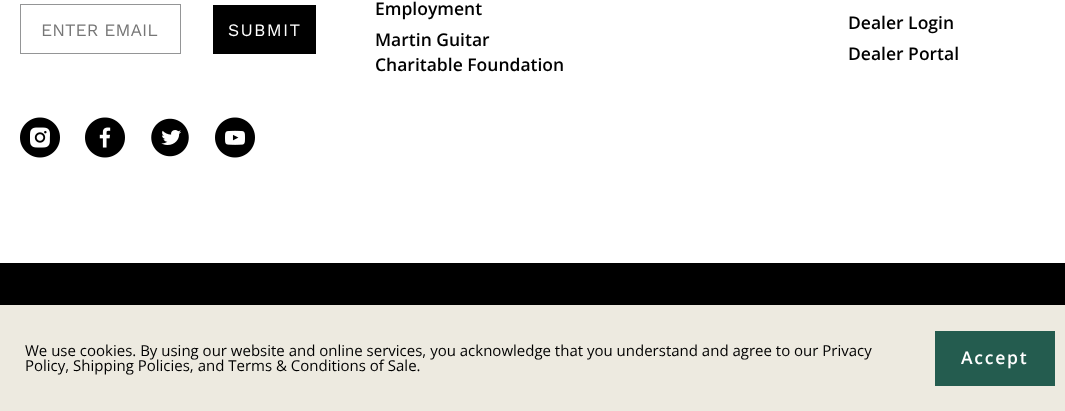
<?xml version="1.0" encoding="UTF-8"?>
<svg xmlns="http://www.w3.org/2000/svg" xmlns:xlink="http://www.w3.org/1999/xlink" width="1065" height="411">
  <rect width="100%" height="100%" fill="#ffffff" />
  <rect x="20.5" y="4.5" width="160" height="49" fill="none" stroke="#949596" />
  <rect x="213" y="5" width="103" height="49" fill="#000000" />
  <image x="20" y="117" width="40" height="41" xlink:href="image1.png" />
  <image x="85" y="117" width="40" height="41" xlink:href="image2.png" />
  <image x="151" y="118" width="38" height="39" xlink:href="image3.png" />
  <image x="215" y="117" width="40" height="41" xlink:href="image4.png" />
  <rect y="263" width="1065" height="42" fill="#000000" />
  <rect y="305" width="1065" height="106" fill="#edeae0" />
  <rect x="935" y="331" width="120" height="55" fill="#245c4f" />
  <text x="41" y="36" style="font-family: Work Sans; font-size: 17.5px; fill: #767676">ENTER EMAIL</text>
  <text x="228" y="36" style="font-family: Work Sans; font-size: 17.5px; letter-spacing: 1.25px; fill: #ffffff">SUBMIT</text>
  <text x="375" y="15" style="font-family: Open Sans; font-size: 17.5px; font-weight: 600; fill: #000000">Employment</text>
  <text x="375" y="46" style="font-family: Open Sans; font-size: 17.5px; font-weight: 600; fill: #000000">Martin Guitar</text>
  <text x="375" y="71" style="font-family: Open Sans; font-size: 17.5px; font-weight: 600; fill: #000000">Charitable Foundation</text>
  <text x="848" y="29" style="font-family: Open Sans; font-size: 17.5px; font-weight: 600; fill: #000000">Dealer Login</text>
  <text x="848" y="60" style="font-family: Open Sans; font-size: 17.5px; font-weight: 600; fill: #000000">Dealer Portal</text>
  <text x="25" y="356" style="font-family: Open Sans; font-size: 15px; fill: #000000">We use cookies. By using our website and online services, you acknowledge that you understand and agree to our Privacy</text>
  <text x="25" y="371" style="font-family: Open Sans; font-size: 15px; fill: #000000">Policy, Shipping Policies, and Terms &amp; Conditions of Sale.</text>
  <text x="961" y="364" style="font-family: Open Sans; font-size: 17.5px; font-weight: 600; letter-spacing: 1.75px; fill: #ffffff">Accept</text>
</svg>
